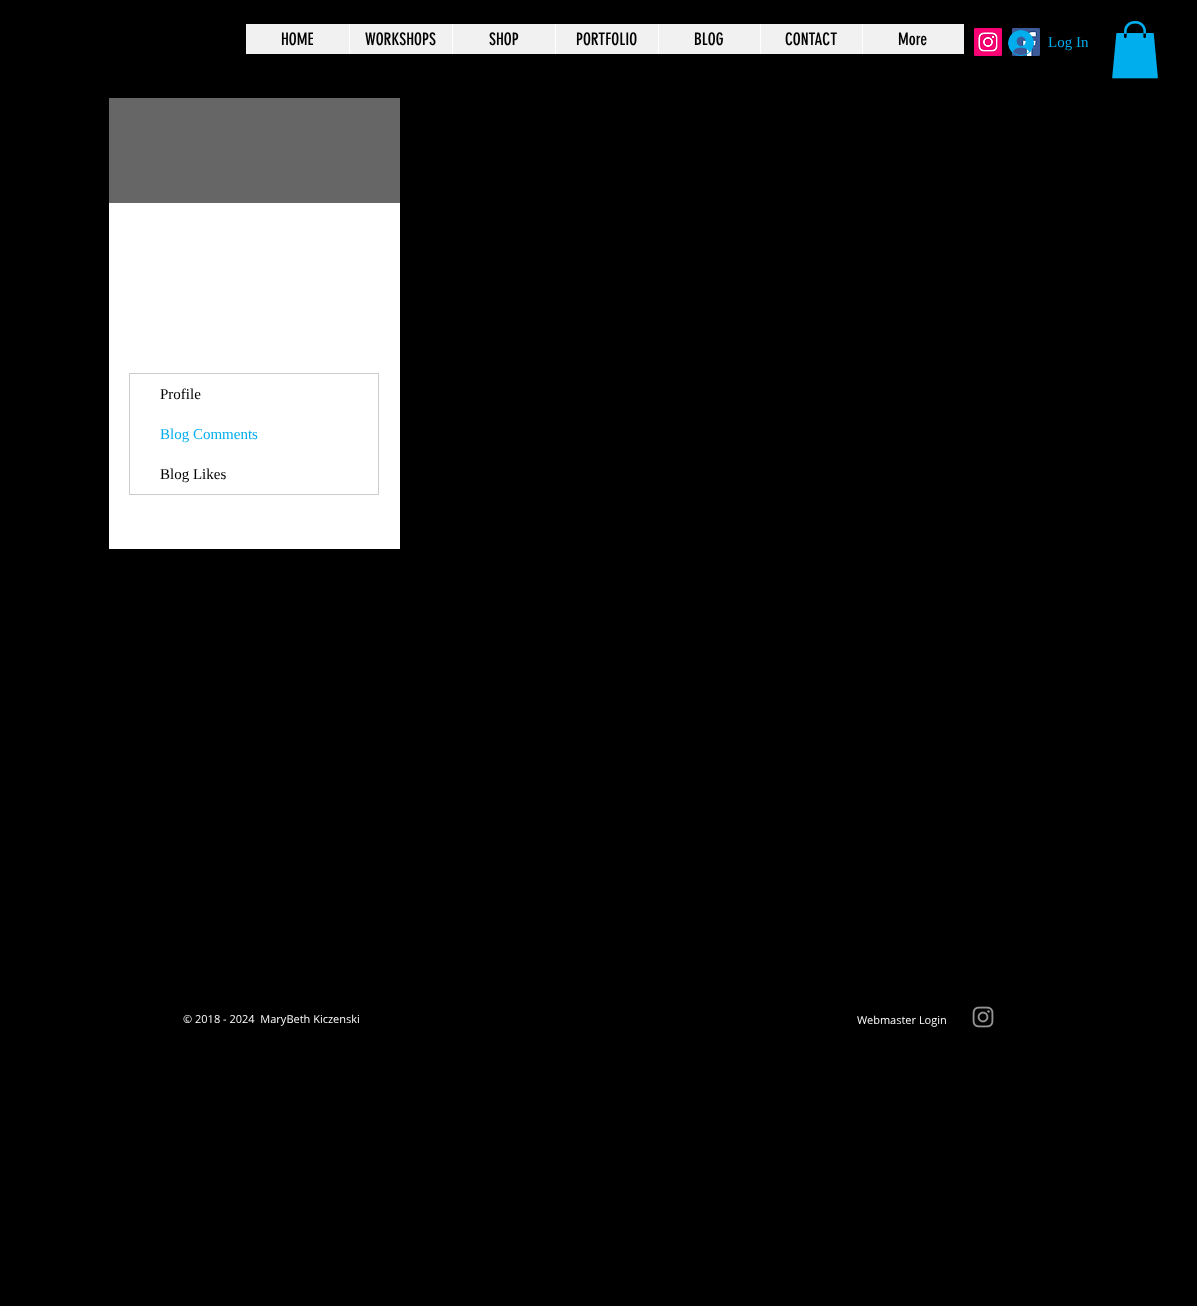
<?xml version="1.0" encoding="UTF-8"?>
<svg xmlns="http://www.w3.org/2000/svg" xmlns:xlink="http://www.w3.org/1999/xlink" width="1197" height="1306">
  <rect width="100%" height="100%" fill="#000000" />
  <rect x="246" y="24" width="718" height="30" fill="#f1f1f1" />
  <rect x="349" y="24" width="1" height="30" fill="#ffffff" />
  <rect x="452" y="24" width="1" height="30" fill="#ffffff" />
  <rect x="555" y="24" width="1" height="30" fill="#ffffff" />
  <rect x="658" y="24" width="1" height="30" fill="#ffffff" />
  <rect x="760" y="24" width="1" height="30" fill="#ffffff" />
  <rect x="862" y="24" width="1" height="30" fill="#ffffff" />
  <image x="974" y="28" width="28" height="28" xlink:href="image1.png" />
  <image x="1012" y="28" width="28" height="28" xlink:href="image2.png" />
  <image x="1008" y="30" width="26" height="26" xlink:href="image3.png" />
  <image x="1112" y="21" width="46" height="58" xlink:href="image4.png" />
  <rect x="109" y="203" width="291" height="346" fill="#ffffff" />
  <rect x="109" y="98" width="291" height="105" fill="#666666" />
  <rect x="129.5" y="373.5" width="249" height="121" fill="none" stroke="#cccccc" />
  <image x="972" y="1006" width="22" height="22" xlink:href="image5.png" />
  <text x="281" y="45" style="font-family: 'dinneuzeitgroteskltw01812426'; font-size: 17px; fill: #000000">HOME</text>
  <text x="365" y="45" style="font-family: 'dinneuzeitgroteskltw01812426'; font-size: 17px; fill: #000000">WORKSHOPS</text>
  <text x="489" y="45" style="font-family: 'dinneuzeitgroteskltw01812426'; font-size: 17px; fill: #000000">SHOP</text>
  <text x="576" y="45" style="font-family: 'dinneuzeitgroteskltw01812426'; font-size: 17px; fill: #000000">PORTFOLIO</text>
  <text x="694" y="45" style="font-family: 'dinneuzeitgroteskltw01812426'; font-size: 17px; fill: #000000">BLOG</text>
  <text x="785" y="45" style="font-family: 'dinneuzeitgroteskltw01812426'; font-size: 17px; fill: #000000">CONTACT</text>
  <text x="898" y="45" style="font-family: 'dinneuzeitgroteskltw01812426'; font-size: 17px; fill: #000000">More</text>
  <text x="1048" y="47" style="font-family: Liberation Serif; font-size: 15px; fill: #00aded">Log In</text>
  <text x="160" y="399" style="font-family: Liberation Serif; font-size: 15px; fill: #000000">Profile</text>
  <text x="160" y="439" style="font-family: Liberation Serif; font-size: 15px; fill: #00aded">Blog Comments</text>
  <text x="160" y="479" style="font-family: Liberation Serif; font-size: 15px; fill: #000000">Blog Likes</text>
  <text x="183" y="1023" style="font-family: Open Sans; font-size: 11px; fill: #ffffff" xml:space="preserve">© 2018 - 2024  MaryBeth Kiczenski</text>
  <text x="857" y="1024" style="font-family: Open Sans; font-size: 11px; fill: #ffffff">Webmaster Login</text>
</svg>
